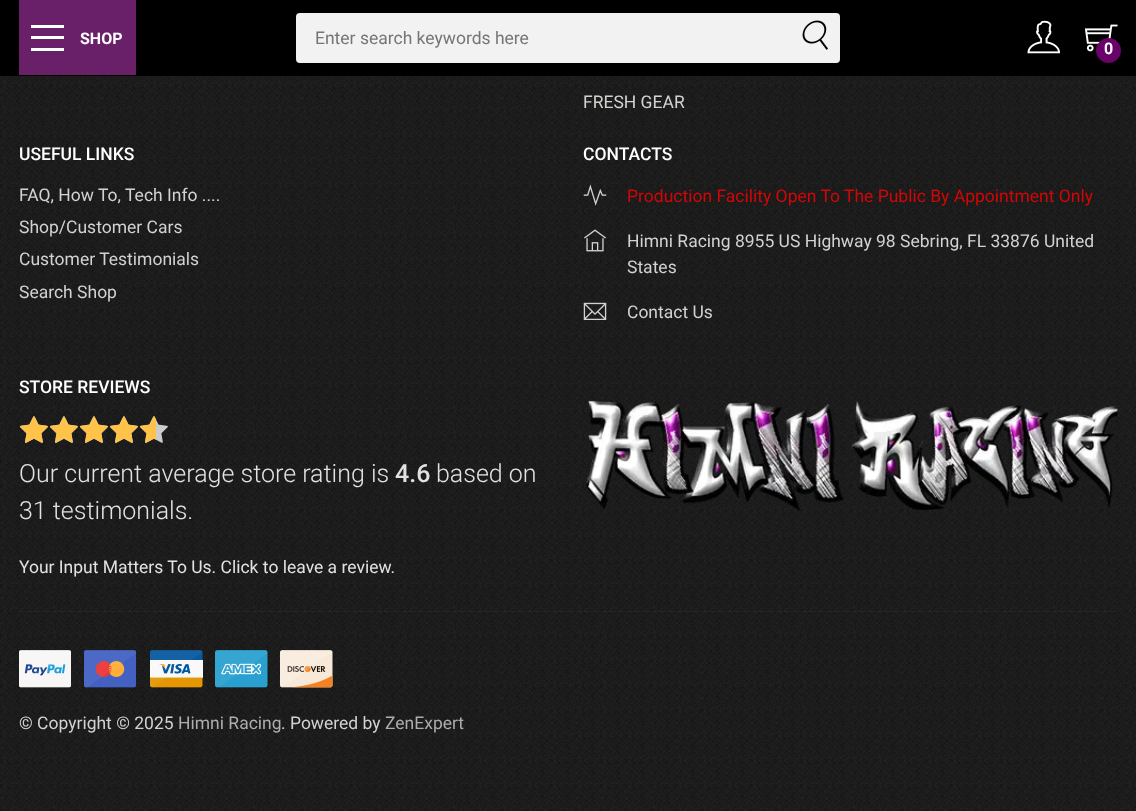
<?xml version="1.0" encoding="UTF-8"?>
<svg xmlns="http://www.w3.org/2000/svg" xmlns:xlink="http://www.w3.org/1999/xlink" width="1136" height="811">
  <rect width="100%" height="100%" fill="#000000" />
  <rect x="19" width="117" height="75" fill="#692069" />
  <rect x="31" y="36" width="33" height="3" fill="#ffffff" />
  <rect x="31" y="25" width="33" height="3" fill="#ffffff" />
  <rect x="31" y="48" width="33" height="3" fill="#ffffff" />
  <rect x="296" y="13" width="544" height="50" rx="4" fill="#f2f2f2" />
  <image x="802" y="20" width="26" height="30" xlink:href="image1.png" />
  <image x="1027" y="20" width="33" height="34" xlink:href="image2.png" />
  <image x="1084" y="24" width="34" height="28" xlink:href="image3.png" />
  <circle cx="1108.5" cy="50.5" r="12.5" fill="#690269" />
  <image x="0" y="76" width="1136" height="735" xlink:href="image4.png" />
  <image x="583" y="184" width="24" height="22" xlink:href="image5.png" />
  <image x="584" y="229" width="22" height="23" xlink:href="image6.png" />
  <image x="583" y="302" width="24" height="18" xlink:href="image7.png" />
  <image x="20" y="416" width="28" height="27" xlink:href="image8.png" />
  <image x="50" y="416" width="28" height="27" xlink:href="image9.png" />
  <image x="80" y="416" width="28" height="27" xlink:href="image10.png" />
  <image x="110" y="416" width="28" height="27" xlink:href="image11.png" />
  <image x="140" y="416" width="28" height="27" xlink:href="image12.png" />
  <image x="20" y="416" width="28" height="27" xlink:href="image13.png" />
  <image x="50" y="416" width="28" height="27" xlink:href="image14.png" />
  <image x="80" y="416" width="28" height="27" xlink:href="image15.png" />
  <image x="110" y="416" width="28" height="27" xlink:href="image16.png" />
  <image x="140" y="416" width="16" height="27" xlink:href="image17.png" />
  <image x="585" y="400" width="533" height="111" xlink:href="image18.png" />
  <rect x="19" y="611" width="1099" height="1" fill="#ffffff" fill-opacity="0.04" />
  <image x="19" y="650" width="52" height="38" xlink:href="image19.png" />
  <image x="84" y="650" width="52" height="38" xlink:href="image20.png" />
  <image x="150" y="650" width="53" height="38" xlink:href="image21.png" />
  <image x="215" y="650" width="53" height="38" xlink:href="image22.png" />
  <image x="280" y="650" width="53" height="38" xlink:href="image23.png" />
  <text x="80" y="44" style="font-family: Roboto; font-size: 16px; font-weight: bold; fill: #ffffff">SHOP</text>
  <text x="315" y="44" style="font-family: Roboto; font-size: 17.5px; fill: #757575">Enter search keywords here</text>
  <text x="1104" y="54" style="font-family: Roboto; font-size: 16px; font-weight: bold; fill: #ffffff">0</text>
  <text x="583" y="108" style="font-family: Roboto; font-size: 17.5px; fill: #d2d2d1">FRESH GEAR</text>
  <text x="19" y="160" style="font-family: Roboto; font-size: 17.5px; font-weight: 500; fill: #ffffff">USEFUL LINKS</text>
  <text x="19" y="201" style="font-family: Roboto; font-size: 17.5px; fill: #d2d2d1">FAQ, How To, Tech Info ....</text>
  <text x="19" y="233" style="font-family: Roboto; font-size: 17.5px; fill: #d2d2d1">Shop/Customer Cars</text>
  <text x="19" y="265" style="font-family: Roboto; font-size: 17.5px; fill: #d2d2d1">Customer Testimonials</text>
  <text x="19" y="298" style="font-family: Roboto; font-size: 17.5px; fill: #d2d2d1">Search Shop</text>
  <text x="583" y="160" style="font-family: Roboto; font-size: 17.5px; font-weight: 500; fill: #ffffff">CONTACTS</text>
  <text x="627" y="202" style="font-family: Roboto; font-size: 17.5px; fill: #d20606">Production Facility Open To The Public By Appointment Only</text>
  <text x="627" y="247" style="font-family: Roboto; font-size: 17.5px; fill: #d2d2d1">Himni Racing 8955 US Highway 98 Sebring, FL 33876 United</text>
  <text x="627" y="273" style="font-family: Roboto; font-size: 17.5px; fill: #d2d2d1">States</text>
  <text x="627" y="318" style="font-family: Roboto; font-size: 17.5px; fill: #d2d2d1">Contact Us</text>
  <text x="19" y="393" style="font-family: Roboto; font-size: 17.5px; font-weight: 500; fill: #ffffff">STORE REVIEWS</text>
  <text x="19" y="482" style="font-family: Roboto; font-size: 25px; font-weight: 300; fill: #e2e2e2">Our current average store rating is</text>
  <text x="395" y="482" style="font-family: Roboto; font-size: 25px; font-weight: 500; fill: #e2e2e2">4.6</text>
  <text x="436" y="482" style="font-family: Roboto; font-size: 25px; font-weight: 300; fill: #e2e2e2">based on</text>
  <text x="19" y="519" style="font-family: Roboto; font-size: 25px; font-weight: 300; fill: #e2e2e2">31 testimonials.</text>
  <text x="19" y="573" style="font-family: Roboto; font-size: 17.5px; fill: #e2e2e2">Your Input Matters To Us. Click to leave a review.</text>
  <text x="19" y="729" style="font-family: Roboto; font-size: 17.5px; fill: #d2d2d1">© Copyright © 2025</text>
  <text x="178" y="729" style="font-family: Roboto; font-size: 17.5px; fill: #adadad">Himni Racing</text>
  <text x="281" y="729" style="font-family: Roboto; font-size: 17.5px; fill: #d2d2d1">. Powered by</text>
  <text x="385" y="729" style="font-family: Roboto; font-size: 17.5px; fill: #adadad">ZenExpert</text>
</svg>
